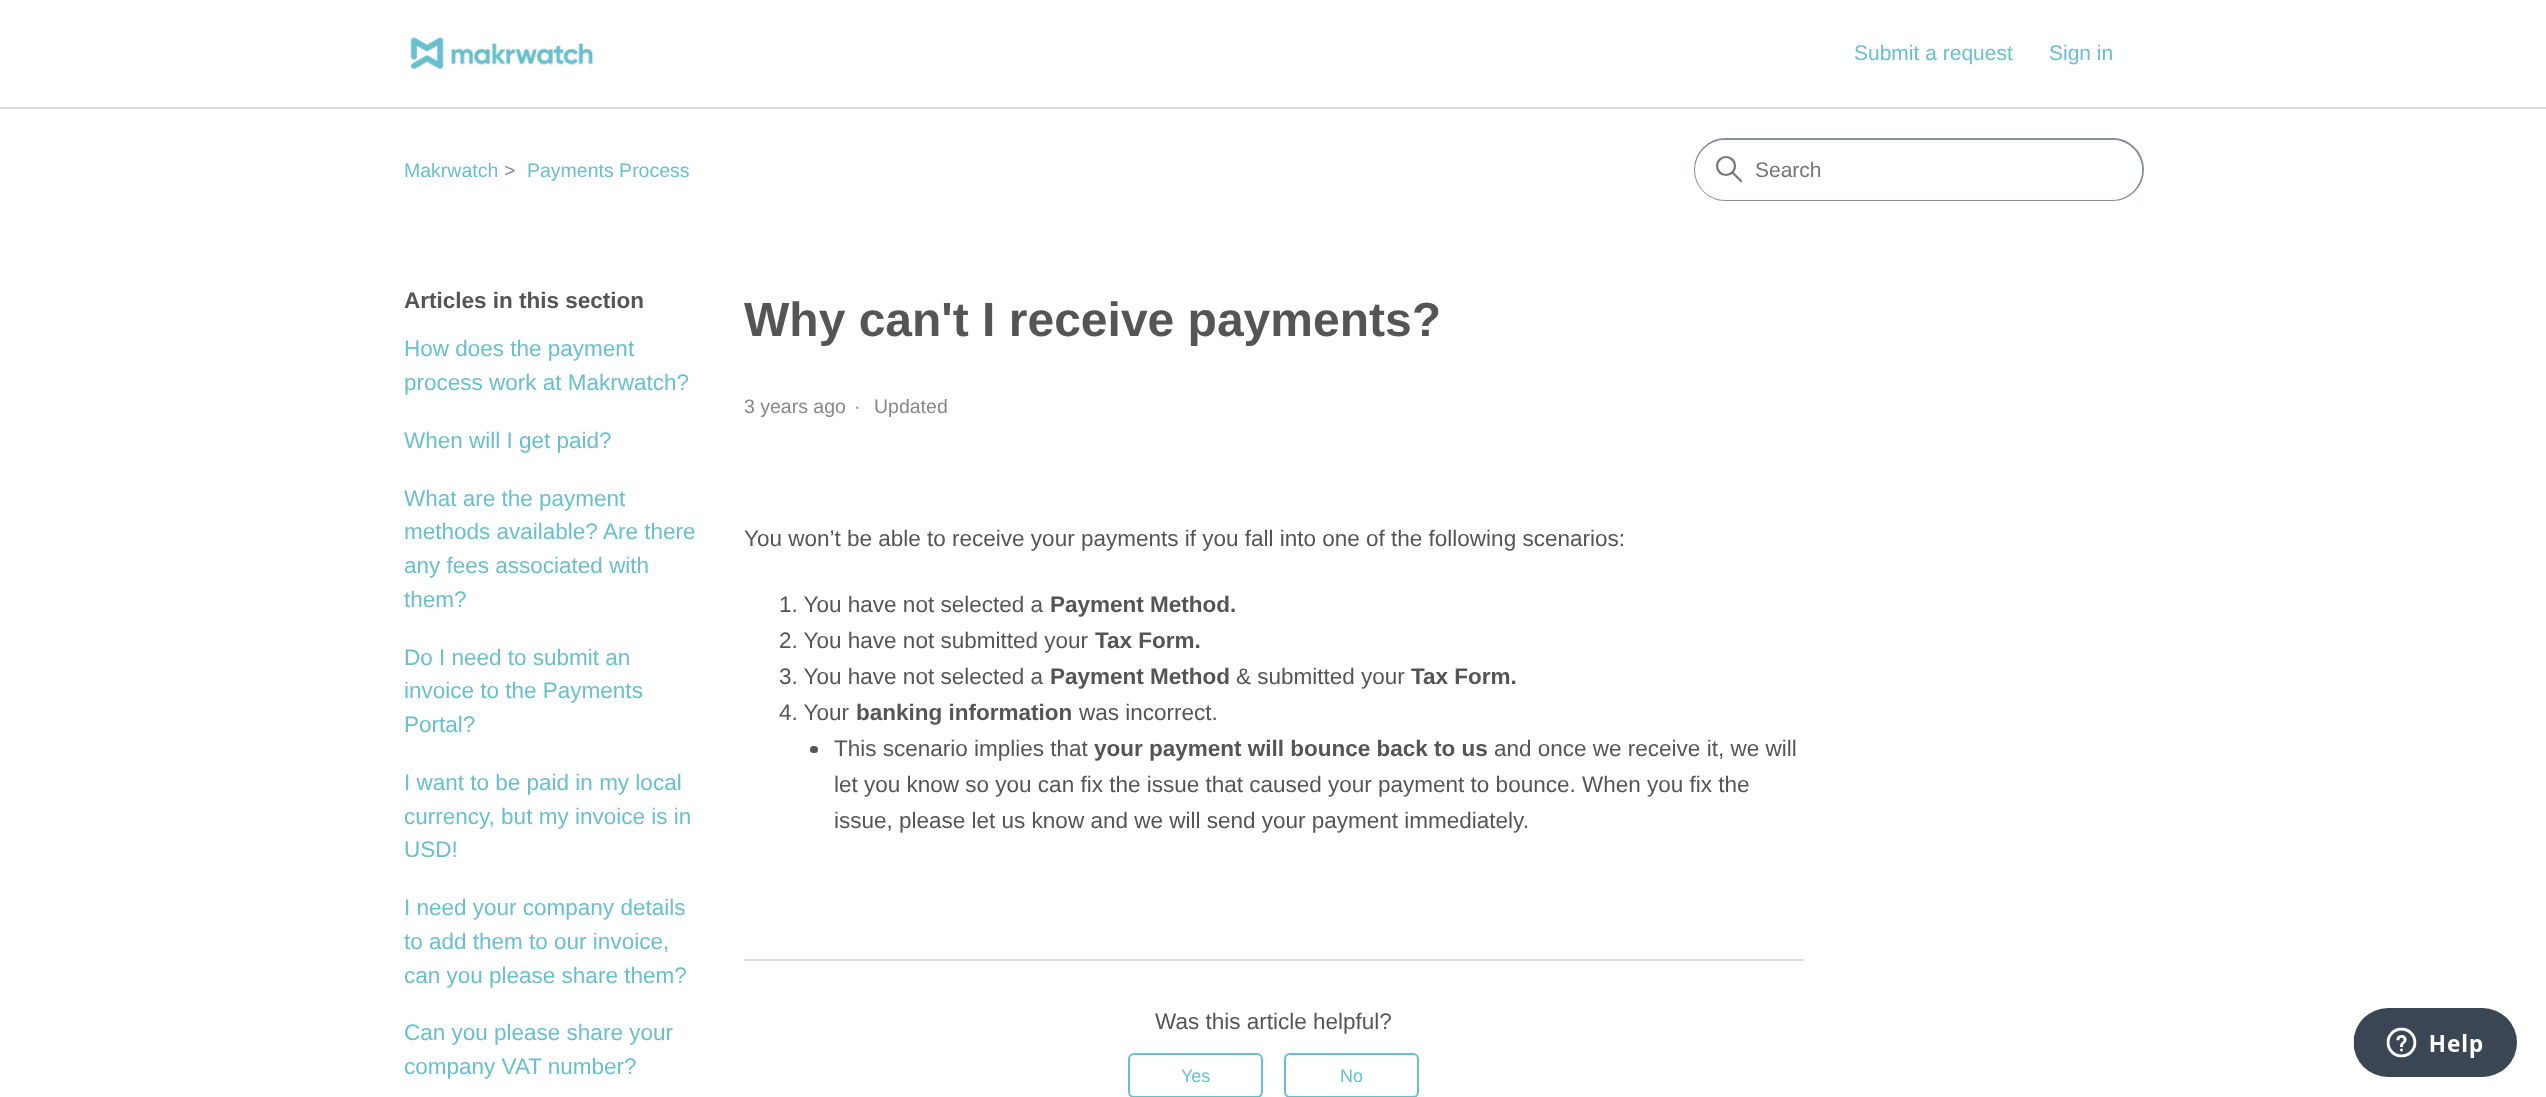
<?xml version="1.0" encoding="UTF-8"?>
<svg xmlns="http://www.w3.org/2000/svg" xmlns:xlink="http://www.w3.org/1999/xlink" width="2546" height="1097">
  <rect width="100%" height="100%" fill="#ffffff" />
  <image x="410" y="37" width="184" height="33" xlink:href="image1.png" />
  <rect y="107" width="2546" height="2" fill="#dddddd" />
  <rect x="1695" y="139" width="448" height="61" rx="30.5" fill="none" stroke="#848f99" stroke-width="2" />
  <rect x="1695" y="140" width="447" height="60" rx="30" fill="#ffffff" />
  <circle cx="1726" cy="166" r="9" fill="none" stroke="#777777" stroke-width="2.2" />
  <path d="M 1741 181 l -8 -8" fill="none" stroke="#777777" stroke-width="2.2" stroke-linecap="round" />
  <rect x="810" y="746" width="8" height="7" rx="3.5" fill="#555555" />
  <rect x="744" y="959" width="1059" height="2" fill="#dddddd" />
  <rect x="1129" y="1054" width="133" height="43" rx="5" fill="none" stroke="#68bfcd" stroke-width="2" />
  <rect x="1285" y="1054" width="133" height="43" rx="5" fill="none" stroke="#68bfcd" stroke-width="2" />
  <image x="2353" y="1008" width="164" height="69" xlink:href="image2.png" />
  <text x="1854" y="60" style="font-family: Liberation Sans; font-size: 21px; fill: #68bfcd">Submit a request</text>
  <text x="2049" y="60" style="font-family: Liberation Sans; font-size: 21px; fill: #68bfcd">Sign in</text>
  <text x="404" y="177" style="font-family: Liberation Sans; font-size: 19.5px; fill: #68bfcd">Makrwatch</text>
  <text x="504" y="177" style="font-family: Liberation Sans; font-size: 19.5px; fill: #888888">&gt;</text>
  <text x="527" y="177" style="font-family: Liberation Sans; font-size: 19.5px; fill: #68bfcd">Payments Process</text>
  <text x="1755" y="177" style="font-family: Liberation Sans; font-size: 21px; fill: #757575">Search</text>
  <text x="404" y="308" style="font-family: Liberation Sans; font-size: 22.5px; font-weight: bold; fill: #555555">Articles in this section</text>
  <text x="404" y="356" style="font-family: Liberation Sans; font-size: 22.5px; fill: #68bfcd">How does the payment</text>
  <text x="404" y="390" style="font-family: Liberation Sans; font-size: 22.5px; fill: #68bfcd">process work at Makrwatch?</text>
  <text x="404" y="448" style="font-family: Liberation Sans; font-size: 22.5px; fill: #68bfcd">When will I get paid?</text>
  <text x="404" y="506" style="font-family: Liberation Sans; font-size: 22.5px; fill: #68bfcd">What are the payment</text>
  <text x="404" y="539" style="font-family: Liberation Sans; font-size: 22.5px; fill: #68bfcd">methods available? Are there</text>
  <text x="404" y="573" style="font-family: Liberation Sans; font-size: 22.5px; fill: #68bfcd">any fees associated with</text>
  <text x="404" y="607" style="font-family: Liberation Sans; font-size: 22.5px; fill: #68bfcd">them?</text>
  <text x="404" y="665" style="font-family: Liberation Sans; font-size: 22.5px; fill: #68bfcd">Do I need to submit an</text>
  <text x="404" y="698" style="font-family: Liberation Sans; font-size: 22.5px; fill: #68bfcd">invoice to the Payments</text>
  <text x="404" y="732" style="font-family: Liberation Sans; font-size: 22.5px; fill: #68bfcd">Portal?</text>
  <text x="404" y="790" style="font-family: Liberation Sans; font-size: 22.5px; fill: #68bfcd">I want to be paid in my local</text>
  <text x="404" y="824" style="font-family: Liberation Sans; font-size: 22.5px; fill: #68bfcd">currency, but my invoice is in</text>
  <text x="404" y="857" style="font-family: Liberation Sans; font-size: 22.5px; fill: #68bfcd">USD!</text>
  <text x="404" y="915" style="font-family: Liberation Sans; font-size: 22.5px; fill: #68bfcd">I need your company details</text>
  <text x="404" y="949" style="font-family: Liberation Sans; font-size: 22.5px; fill: #68bfcd">to add them to our invoice,</text>
  <text x="404" y="983" style="font-family: Liberation Sans; font-size: 22.5px; fill: #68bfcd">can you please share them?</text>
  <text x="404" y="1040" style="font-family: Liberation Sans; font-size: 22.5px; fill: #68bfcd">Can you please share your</text>
  <text x="404" y="1074" style="font-family: Liberation Sans; font-size: 22.5px; fill: #68bfcd">company VAT number?</text>
  <text x="744" y="336" style="font-family: Liberation Sans; font-size: 48px; font-weight: bold; fill: #555555">Why can't I receive payments?</text>
  <text x="744" y="413" style="font-family: Liberation Sans; font-size: 19.5px; fill: #888888">3 years ago</text>
  <text x="854" y="413" style="font-family: Liberation Sans; font-size: 19.5px; fill: #888888">·</text>
  <text x="874" y="413" style="font-family: Liberation Sans; font-size: 19.5px; fill: #888888">Updated</text>
  <text x="744" y="546" style="font-family: Liberation Sans; font-size: 22.5px; fill: #555555">You won’t be able to receive your payments if you fall into one of the following scenarios:</text>
  <text x="779" y="612" style="font-family: Liberation Sans; font-size: 22.5px; fill: #555555">1. You have not selected a</text>
  <text x="1050" y="612" style="font-family: Liberation Sans; font-size: 22.5px; font-weight: bold; fill: #555555">Payment Method.</text>
  <text x="779" y="648" style="font-family: Liberation Sans; font-size: 22.5px; fill: #555555">2. You have not submitted your</text>
  <text x="1095" y="648" style="font-family: Liberation Sans; font-size: 22.5px; font-weight: bold; fill: #555555">Tax Form.</text>
  <text x="779" y="684" style="font-family: Liberation Sans; font-size: 22.5px; fill: #555555">3. You have not selected a</text>
  <text x="1050" y="684" style="font-family: Liberation Sans; font-size: 22.5px; font-weight: bold; fill: #555555">Payment Method</text>
  <text x="1236" y="684" style="font-family: Liberation Sans; font-size: 22.5px; fill: #555555">&amp; submitted your</text>
  <text x="1411" y="684" style="font-family: Liberation Sans; font-size: 22.5px; font-weight: bold; fill: #555555">Tax Form.</text>
  <text x="779" y="720" style="font-family: Liberation Sans; font-size: 22.5px; fill: #555555">4. Your</text>
  <text x="856" y="720" style="font-family: Liberation Sans; font-size: 22.5px; font-weight: bold; fill: #555555">banking information</text>
  <text x="1079" y="720" style="font-family: Liberation Sans; font-size: 22.5px; fill: #555555">was incorrect.</text>
  <text x="834" y="756" style="font-family: Liberation Sans; font-size: 22.5px; fill: #555555">This scenario implies that</text>
  <text x="1094" y="756" style="font-family: Liberation Sans; font-size: 22.5px; font-weight: bold; fill: #555555">your payment will bounce back to us</text>
  <text x="1494" y="756" style="font-family: Liberation Sans; font-size: 22.5px; fill: #555555">and once we receive it, we will</text>
  <text x="834" y="792" style="font-family: Liberation Sans; font-size: 22.5px; fill: #555555">let you know so you can fix the issue that caused your payment to bounce. When you fix the</text>
  <text x="834" y="828" style="font-family: Liberation Sans; font-size: 22.5px; fill: #555555">issue, please let us know and we will send your payment immediately.</text>
  <text x="1155" y="1029" style="font-family: Liberation Sans; font-size: 22.5px; fill: #555555">Was this article helpful?</text>
  <text x="1181" y="1082" style="font-family: Liberation Sans; font-size: 18px; fill: #68bfcd">Yes</text>
  <text x="1340" y="1082" style="font-family: Liberation Sans; font-size: 18px; fill: #68bfcd">No</text>
</svg>
